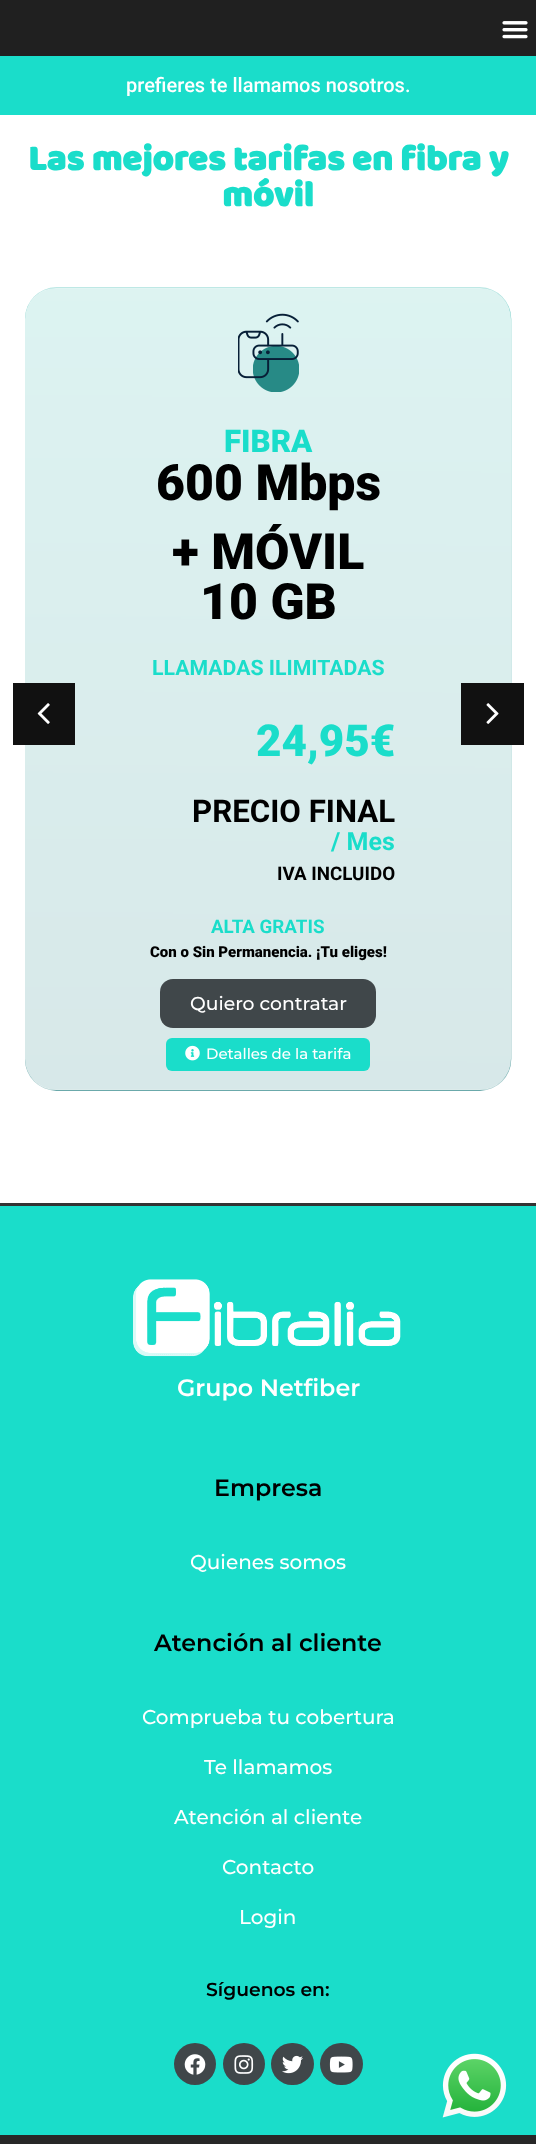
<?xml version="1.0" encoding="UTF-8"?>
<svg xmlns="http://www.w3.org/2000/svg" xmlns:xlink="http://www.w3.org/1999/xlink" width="536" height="2144">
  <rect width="100%" height="100%" fill="#ffffff" />
  <rect width="536" height="56" fill="#202020" />
  <image x="502" y="21" width="26" height="18" xlink:href="image1.png" />
  <rect y="56" width="536" height="59" fill="#1addca" />
  <image x="25" y="287" width="487" height="804" xlink:href="image3.png" />
  <rect x="25" y="288" width="486" height="802" rx="31" fill="#ffffff" fill-opacity="0.8" />
  <rect x="13" y="683" width="62" height="62" fill="#111111" />
  <image x="37" y="703" width="13" height="21" xlink:href="image2.png" />
  <image x="238" y="313" width="61" height="79" xlink:href="image4.png" />
  <rect x="160" y="979" width="216" height="49" rx="13" fill="#40474a" />
  <rect x="166" y="1038" width="204" height="33" rx="6" fill="#1addca" />
  <image x="185" y="1045" width="15" height="16" xlink:href="image5.png" />
  <rect x="461" y="683" width="63" height="62" fill="#111111" />
  <image x="486" y="703" width="13" height="21" xlink:href="image6.png" />
  <rect y="1206" width="536" height="929" fill="#1addca" />
  <rect y="1203" width="536" height="3" fill="#333333" />
  <image x="133" y="1279" width="268" height="78" xlink:href="image7.png" />
  <circle cx="195" cy="2064" r="21" fill="#40474a" />
  <image x="184" y="2054" width="22" height="21" xlink:href="image8.png" />
  <circle cx="244" cy="2064" r="21" fill="#40474a" />
  <image x="234" y="2055" width="20" height="19" xlink:href="image9.png" />
  <rect x="271" y="2043" width="43" height="42" rx="21" fill="#40474a" />
  <image x="282" y="2055" width="21" height="19" xlink:href="image10.png" />
  <rect x="320" y="2043" width="43" height="42" rx="21" fill="#40474a" />
  <image x="329" y="2056" width="24" height="17" xlink:href="image11.png" />
  <rect y="2135" width="536" height="9" fill="#272727" />
  <image x="442" y="2053" width="65" height="65" xlink:href="image12.png" />
  <text x="126" y="92" style="font-family: Roboto; font-size: 20px; font-weight: 500; fill: #ffffff">prefieres te llamamos nosotros.</text>
  <text x="28" y="170" style="font-family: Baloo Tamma; font-size: 36.25px; font-weight: bold; fill: #1addca">Las mejores tarifas en fibra y</text>
  <text x="222" y="206" style="font-family: Baloo Tamma; font-size: 36.25px; font-weight: bold; fill: #1addca">móvil</text>
  <text x="224" y="452" style="font-family: Roboto; font-size: 31.25px; font-weight: 900; fill: #1addca">FIBRA</text>
  <text x="156" y="500" style="font-family: Roboto; font-size: 50px; font-weight: 900; fill: #000000">600 Mbps</text>
  <text x="172" y="569" style="font-family: Roboto; font-size: 50px; font-weight: 900; fill: #000000">+ MÓVIL</text>
  <text x="200" y="619" style="font-family: Roboto; font-size: 50px; font-weight: 900; fill: #000000">10 GB</text>
  <text x="152" y="675" style="font-family: Roboto; font-size: 21.25px; font-weight: bold; fill: #1addca">LLAMADAS ILIMITADAS</text>
  <text x="256" y="756" style="font-family: Roboto; font-size: 44px; font-weight: 900; fill: #1addca">24,95€</text>
  <text x="192" y="822" style="font-family: Roboto; font-size: 31.25px; font-weight: bold; fill: #000000">PRECIO FINAL</text>
  <text x="331" y="850" style="font-family: Roboto; font-size: 25px; font-weight: bold; fill: #1addca">/ Mes</text>
  <text x="277" y="880" style="font-family: Roboto; font-size: 18.75px; font-weight: bold; fill: #000000">IVA INCLUIDO</text>
  <text x="211" y="933" style="font-family: Roboto; font-size: 18.75px; font-weight: bold; fill: #1addca">ALTA GRATIS</text>
  <text x="150" y="957" style="font-family: Roboto; font-size: 15px; font-weight: 900; fill: #000000">Con o Sin Permanencia. ¡Tu eliges!</text>
  <text x="190" y="1010" style="font-family: Montserrat; font-size: 18.75px; font-weight: 500; fill: #ffffff">Quiero contratar</text>
  <text x="206" y="1059" style="font-family: Montserrat; font-size: 15px; font-weight: 500; fill: #ffffff">Detalles de la tarifa</text>
  <text x="177" y="1396" style="font-family: Montserrat; font-size: 23.75px; font-weight: 600; fill: #ffffff">Grupo Netfiber</text>
  <text x="214" y="1496" style="font-family: Montserrat; font-size: 23.75px; font-weight: 600; fill: #000000">Empresa</text>
  <text x="190" y="1569" style="font-family: Montserrat; font-size: 20px; font-weight: 500; fill: #ffffff">Quienes somos</text>
  <text x="154" y="1651" style="font-family: Montserrat; font-size: 23.75px; font-weight: 600; fill: #000000">Atención al cliente</text>
  <text x="142" y="1724" style="font-family: Montserrat; font-size: 20px; font-weight: 500; fill: #ffffff">Comprueba tu cobertura</text>
  <text x="204" y="1774" style="font-family: Montserrat; font-size: 20px; font-weight: 500; fill: #ffffff">Te llamamos</text>
  <text x="174" y="1824" style="font-family: Montserrat; font-size: 20px; font-weight: 500; fill: #ffffff">Atención al cliente</text>
  <text x="222" y="1874" style="font-family: Montserrat; font-size: 20px; font-weight: 500; fill: #ffffff">Contacto</text>
  <text x="239" y="1924" style="font-family: Montserrat; font-size: 20px; font-weight: 500; fill: #ffffff">Login</text>
  <text x="206" y="1996" style="font-family: Montserrat; font-size: 18.75px; font-weight: 600; fill: #000000">Síguenos en:</text>
</svg>
